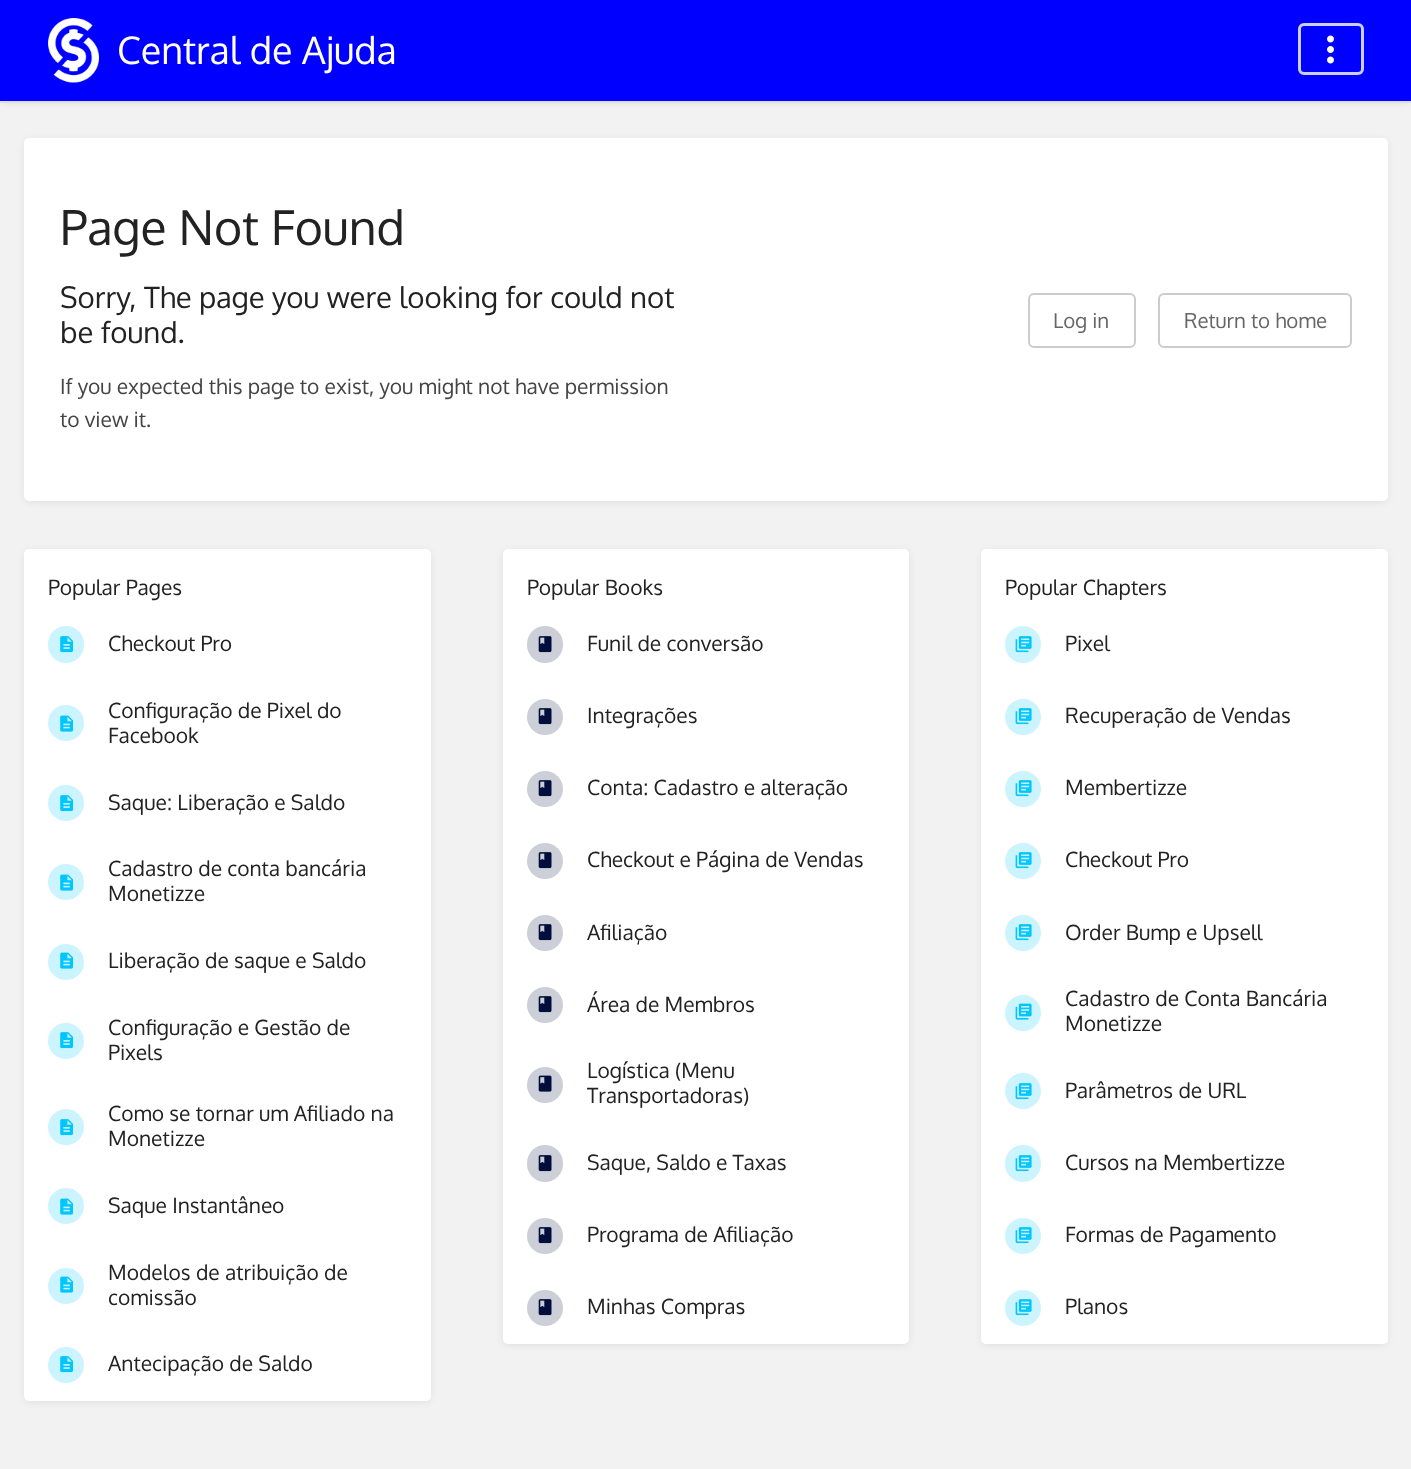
<?xml version="1.0" encoding="UTF-8"?>
<svg xmlns="http://www.w3.org/2000/svg" xmlns:xlink="http://www.w3.org/1999/xlink" width="1411" height="1469">
  <rect width="100%" height="100%" fill="#f2f2f2" />
  <rect x="2" y="3" width="1408" height="99" fill="#000000" fill-opacity="0.1" filter="blur(4.5px)" />
  <rect width="1411" height="101" fill="#0000ff" />
  <rect y="101" width="1411" height="2" fill="#dddddd" />
  <image x="48" y="18" width="51" height="65" xlink:href="image1.png" />
  <rect x="1299.5" y="24.5" width="63" height="49" rx="4.5" fill="none" stroke="#ccccff" stroke-width="3" />
  <image x="1327" y="35" width="7" height="29" xlink:href="image2.png" />
  <rect x="26" y="141" width="1360" height="360" rx="3" fill="#000000" fill-opacity="0.1" filter="blur(4.5px)" />
  <rect x="24" y="138" width="1364" height="363" rx="5" fill="#ffffff" />
  <rect x="1029" y="294" width="106" height="53" rx="5" fill="none" stroke="#cccccc" stroke-width="2" />
  <rect x="1159" y="294" width="192" height="53" rx="5" fill="none" stroke="#cccccc" stroke-width="2" />
  <rect x="26" y="552" width="403" height="849" rx="3" fill="#000000" fill-opacity="0.1" filter="blur(4.5px)" />
  <rect x="24" y="549" width="407" height="852" rx="5" fill="#ffffff" />
  <image x="60" y="636" width="13" height="17" xlink:href="image3.png" />
  <rect x="48" y="626" width="36" height="37" rx="18" fill="#00c6ff" fill-opacity="0.2" />
  <image x="60" y="715" width="13" height="17" xlink:href="image4.png" />
  <circle cx="66" cy="723" r="18" fill="#00c6ff" fill-opacity="0.2" />
  <image x="60" y="795" width="13" height="17" xlink:href="image3.png" />
  <circle cx="66" cy="803" r="18" fill="#00c6ff" fill-opacity="0.2" />
  <image x="60" y="874" width="13" height="17" xlink:href="image4.png" />
  <circle cx="66" cy="882" r="18" fill="#00c6ff" fill-opacity="0.2" />
  <image x="60" y="952" width="13" height="17" xlink:href="image4.png" />
  <circle cx="66" cy="962" r="18" fill="#00c6ff" fill-opacity="0.2" />
  <image x="60" y="1032" width="13" height="17" xlink:href="image3.png" />
  <circle cx="66" cy="1041" r="18" fill="#00c6ff" fill-opacity="0.2" />
  <image x="60" y="1119" width="13" height="17" xlink:href="image3.png" />
  <circle cx="66" cy="1127" r="18" fill="#00c6ff" fill-opacity="0.2" />
  <image x="60" y="1198" width="13" height="17" xlink:href="image4.png" />
  <circle cx="66" cy="1206" r="18" fill="#00c6ff" fill-opacity="0.2" />
  <image x="60" y="1276" width="13" height="17" xlink:href="image4.png" />
  <circle cx="66" cy="1286" r="18" fill="#00c6ff" fill-opacity="0.2" />
  <image x="60" y="1356" width="13" height="17" xlink:href="image3.png" />
  <circle cx="66" cy="1365" r="18" fill="#00c6ff" fill-opacity="0.2" />
  <rect x="504" y="552" width="404" height="792" rx="3" fill="#000000" fill-opacity="0.1" filter="blur(4.5px)" />
  <rect x="503" y="549" width="406" height="795" rx="5" fill="#ffffff" />
  <image x="538" y="636" width="14" height="17" xlink:href="image5.png" />
  <rect x="527" y="626" width="36" height="37" rx="18" fill="#000e3b" fill-opacity="0.2" />
  <image x="538" y="708" width="14" height="17" xlink:href="image5.png" />
  <circle cx="545" cy="717" r="18" fill="#000e3b" fill-opacity="0.2" />
  <image x="538" y="780" width="14" height="17" xlink:href="image5.png" />
  <circle cx="545" cy="789" r="18" fill="#000e3b" fill-opacity="0.2" />
  <image x="538" y="852" width="14" height="17" xlink:href="image5.png" />
  <circle cx="545" cy="861" r="18" fill="#000e3b" fill-opacity="0.2" />
  <image x="538" y="924" width="14" height="17" xlink:href="image5.png" />
  <circle cx="545" cy="933" r="18" fill="#000e3b" fill-opacity="0.2" />
  <image x="538" y="996" width="14" height="17" xlink:href="image5.png" />
  <circle cx="545" cy="1005" r="18" fill="#000e3b" fill-opacity="0.2" />
  <image x="538" y="1075" width="14" height="17" xlink:href="image6.png" />
  <circle cx="545" cy="1085" r="18" fill="#000e3b" fill-opacity="0.2" />
  <image x="538" y="1155" width="14" height="17" xlink:href="image5.png" />
  <rect x="527" y="1145" width="36" height="37" rx="18" fill="#000e3b" fill-opacity="0.2" />
  <image x="538" y="1227" width="14" height="17" xlink:href="image5.png" />
  <circle cx="545" cy="1236" r="18" fill="#000e3b" fill-opacity="0.2" />
  <image x="538" y="1299" width="14" height="17" xlink:href="image5.png" />
  <circle cx="545" cy="1308" r="18" fill="#000e3b" fill-opacity="0.2" />
  <rect x="983" y="552" width="403" height="792" rx="3" fill="#000000" fill-opacity="0.1" filter="blur(4.5px)" />
  <rect x="981" y="549" width="407" height="795" rx="5" fill="#ffffff" />
  <image x="1015" y="636" width="17" height="17" xlink:href="image7.png" />
  <rect x="1005" y="626" width="36" height="37" rx="18" fill="#00c6ff" fill-opacity="0.2" />
  <image x="1015" y="708" width="17" height="17" xlink:href="image7.png" />
  <circle cx="1023" cy="717" r="18" fill="#00c6ff" fill-opacity="0.2" />
  <image x="1015" y="780" width="17" height="17" xlink:href="image7.png" />
  <circle cx="1023" cy="789" r="18" fill="#00c6ff" fill-opacity="0.2" />
  <image x="1015" y="852" width="17" height="17" xlink:href="image7.png" />
  <circle cx="1023" cy="861" r="18" fill="#00c6ff" fill-opacity="0.2" />
  <image x="1015" y="924" width="17" height="17" xlink:href="image7.png" />
  <circle cx="1023" cy="933" r="18" fill="#00c6ff" fill-opacity="0.2" />
  <image x="1015" y="1003" width="17" height="17" xlink:href="image8.png" />
  <circle cx="1023" cy="1013" r="18" fill="#00c6ff" fill-opacity="0.2" />
  <image x="1015" y="1083" width="17" height="17" xlink:href="image7.png" />
  <circle cx="1023" cy="1091" r="18" fill="#00c6ff" fill-opacity="0.2" />
  <image x="1015" y="1155" width="17" height="17" xlink:href="image7.png" />
  <rect x="1005" y="1145" width="36" height="37" rx="18" fill="#00c6ff" fill-opacity="0.2" />
  <image x="1015" y="1227" width="17" height="17" xlink:href="image7.png" />
  <circle cx="1023" cy="1236" r="18" fill="#00c6ff" fill-opacity="0.2" />
  <image x="1015" y="1299" width="17" height="17" xlink:href="image7.png" />
  <circle cx="1023" cy="1308" r="18" fill="#00c6ff" fill-opacity="0.2" />
  <text x="117" y="64" style="font-family: Oxygen; font-size: 37.75px; fill: #ffffff">Central de Ajuda</text>
  <text x="60" y="245" style="font-family: Oxygen; font-size: 48px; fill: #222222">Page Not Found</text>
  <text x="60" y="308" style="font-family: Oxygen; font-size: 29.4px; fill: #222222">Sorry, The page you were looking for could not</text>
  <text x="60" y="343" style="font-family: Oxygen; font-size: 29.4px; fill: #222222">be found.</text>
  <text x="60" y="394" style="font-family: Oxygen; font-size: 21px; fill: #444444">If you expected this page to exist, you might not have permission</text>
  <text x="60" y="427" style="font-family: Oxygen; font-size: 21px; fill: #444444">to view it.</text>
  <text x="1053" y="328" style="font-family: Oxygen; font-size: 20.5px; fill: #666666">Log in</text>
  <text x="1184" y="328" style="font-family: Oxygen; font-size: 20.5px; fill: #666666">Return to home</text>
  <text x="48" y="595" style="font-family: Oxygen; font-size: 21px; fill: #222222">Popular Pages</text>
  <text x="108" y="651" style="font-family: Oxygen; font-size: 21px; fill: #222222">Checkout Pro</text>
  <text x="108" y="718" style="font-family: Oxygen; font-size: 21px; fill: #222222">Configuração de Pixel do</text>
  <text x="108" y="743" style="font-family: Oxygen; font-size: 21px; fill: #222222">Facebook</text>
  <text x="108" y="810" style="font-family: Oxygen; font-size: 21px; fill: #222222">Saque: Liberação e Saldo</text>
  <text x="108" y="876" style="font-family: Oxygen; font-size: 21px; fill: #222222">Cadastro de conta bancária</text>
  <text x="108" y="901" style="font-family: Oxygen; font-size: 21px; fill: #222222">Monetizze</text>
  <text x="108" y="968" style="font-family: Oxygen; font-size: 21px; fill: #222222">Liberação de saque e Saldo</text>
  <text x="108" y="1035" style="font-family: Oxygen; font-size: 21px; fill: #222222">Configuração e Gestão de</text>
  <text x="108" y="1060" style="font-family: Oxygen; font-size: 21px; fill: #222222">Pixels</text>
  <text x="108" y="1121" style="font-family: Oxygen; font-size: 21px; fill: #222222">Como se tornar um Afiliado na</text>
  <text x="108" y="1146" style="font-family: Oxygen; font-size: 21px; fill: #222222">Monetizze</text>
  <text x="108" y="1213" style="font-family: Oxygen; font-size: 21px; fill: #222222">Saque Instantâneo</text>
  <text x="108" y="1280" style="font-family: Oxygen; font-size: 21px; fill: #222222">Modelos de atribuição de</text>
  <text x="108" y="1305" style="font-family: Oxygen; font-size: 21px; fill: #222222">comissão</text>
  <text x="108" y="1371" style="font-family: Oxygen; font-size: 21px; fill: #222222">Antecipação de Saldo</text>
  <text x="527" y="595" style="font-family: Oxygen; font-size: 21px; fill: #222222">Popular Books</text>
  <text x="587" y="651" style="font-family: Oxygen; font-size: 21px; fill: #222222">Funil de conversão</text>
  <text x="587" y="723" style="font-family: Oxygen; font-size: 21px; fill: #222222">Integrações</text>
  <text x="587" y="795" style="font-family: Oxygen; font-size: 21px; fill: #222222">Conta: Cadastro e alteração</text>
  <text x="587" y="867" style="font-family: Oxygen; font-size: 21px; fill: #222222">Checkout e Página de Vendas</text>
  <text x="587" y="940" style="font-family: Oxygen; font-size: 21px; fill: #222222">Afiliação</text>
  <text x="587" y="1012" style="font-family: Oxygen; font-size: 21px; fill: #222222">Área de Membros</text>
  <text x="587" y="1078" style="font-family: Oxygen; font-size: 21px; fill: #222222">Logística (Menu</text>
  <text x="587" y="1103" style="font-family: Oxygen; font-size: 21px; fill: #222222">Transportadoras)</text>
  <text x="587" y="1170" style="font-family: Oxygen; font-size: 21px; fill: #222222">Saque, Saldo e Taxas</text>
  <text x="587" y="1242" style="font-family: Oxygen; font-size: 21px; fill: #222222">Programa de Afiliação</text>
  <text x="587" y="1314" style="font-family: Oxygen; font-size: 21px; fill: #222222">Minhas Compras</text>
  <text x="1005" y="595" style="font-family: Oxygen; font-size: 21px; fill: #222222">Popular Chapters</text>
  <text x="1065" y="651" style="font-family: Oxygen; font-size: 21px; fill: #222222">Pixel</text>
  <text x="1065" y="723" style="font-family: Oxygen; font-size: 21px; fill: #222222">Recuperação de Vendas</text>
  <text x="1065" y="795" style="font-family: Oxygen; font-size: 21px; fill: #222222">Membertizze</text>
  <text x="1065" y="867" style="font-family: Oxygen; font-size: 21px; fill: #222222">Checkout Pro</text>
  <text x="1065" y="940" style="font-family: Oxygen; font-size: 21px; fill: #222222">Order Bump e Upsell</text>
  <text x="1065" y="1006" style="font-family: Oxygen; font-size: 21px; fill: #222222">Cadastro de Conta Bancária</text>
  <text x="1065" y="1031" style="font-family: Oxygen; font-size: 21px; fill: #222222">Monetizze</text>
  <text x="1065" y="1098" style="font-family: Oxygen; font-size: 21px; fill: #222222">Parâmetros de URL</text>
  <text x="1065" y="1170" style="font-family: Oxygen; font-size: 21px; fill: #222222">Cursos na Membertizze</text>
  <text x="1065" y="1242" style="font-family: Oxygen; font-size: 21px; fill: #222222">Formas de Pagamento</text>
  <text x="1065" y="1314" style="font-family: Oxygen; font-size: 21px; fill: #222222">Planos</text>
</svg>
